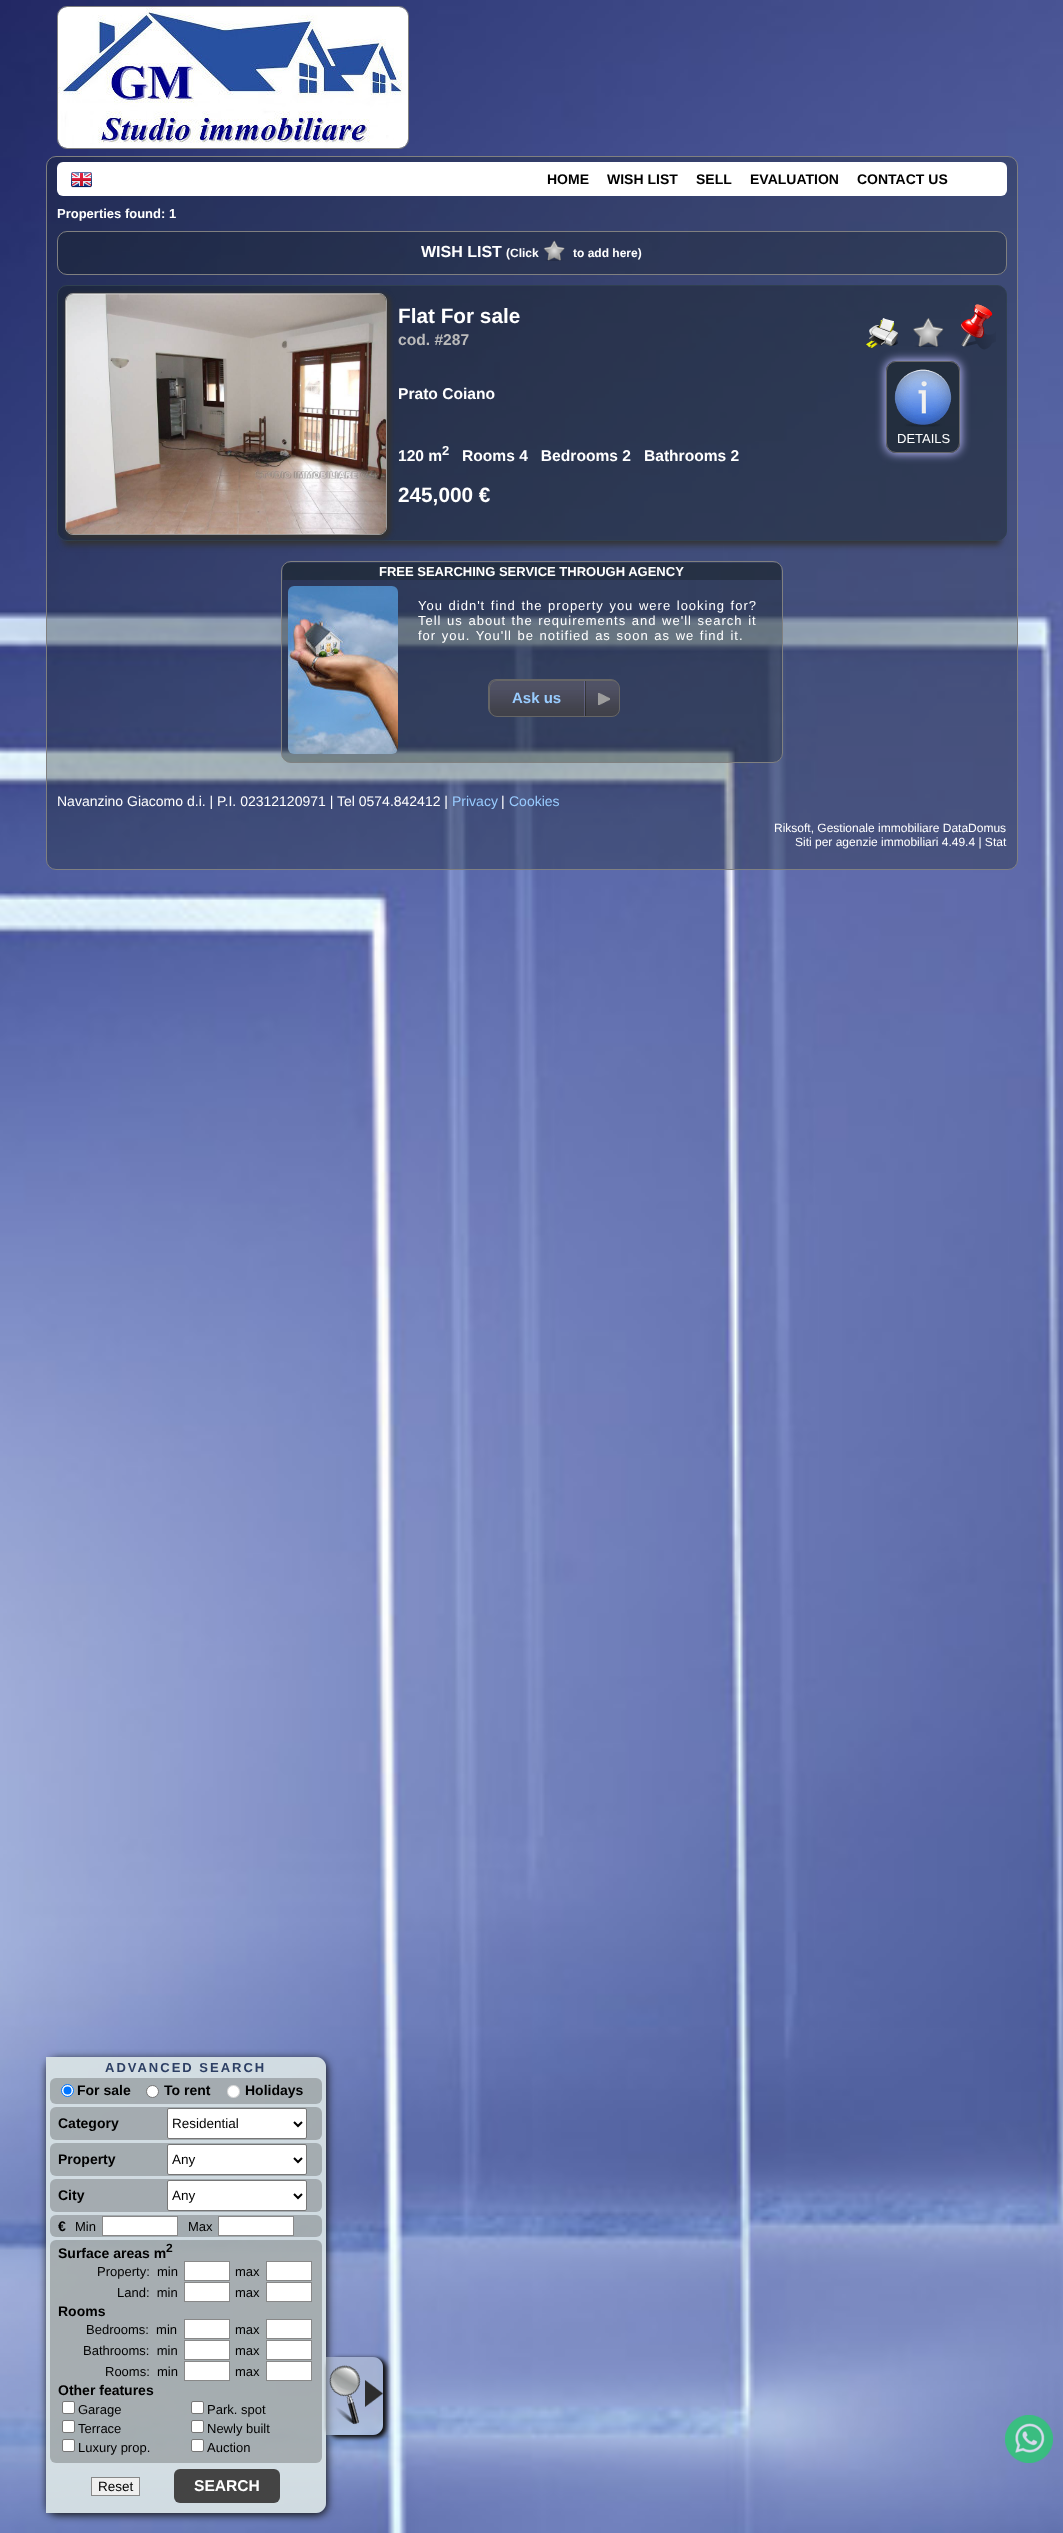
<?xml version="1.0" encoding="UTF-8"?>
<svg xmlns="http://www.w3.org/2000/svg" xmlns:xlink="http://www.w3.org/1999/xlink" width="1063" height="2533">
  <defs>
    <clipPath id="clip1"><path d="M 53 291 h 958 v 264 h -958 z m 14 -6 h 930 c 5.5 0 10 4.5 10 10 v 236 c 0 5.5 -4.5 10 -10 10 h -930 c -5.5 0 -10 -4.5 -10 -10 v -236 c 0 -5.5 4.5 -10 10 -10 z" clip-rule="evenodd" /></clipPath>
    <clipPath id="clip2"><path d="M 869 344 h 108 v 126 h -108 z m 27 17 h 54 c 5.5 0 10 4.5 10 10 v 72 c 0 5.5 -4.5 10 -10 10 h -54 c -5.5 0 -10 -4.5 -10 -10 v -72 c 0 -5.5 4.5 -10 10 -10 z" clip-rule="evenodd" /></clipPath>
    <clipPath id="clip3"><path d="M 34 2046 h 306 v 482 h -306 z m 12 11 h 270 c 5.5 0 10 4.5 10 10 v 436 c 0 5.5 -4.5 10 -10 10 h -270 z" clip-rule="evenodd" /></clipPath>
    <clipPath id="clip4"><path d="M 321 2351 h 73 v 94 h -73 z m 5 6 h 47 c 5.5 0 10 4.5 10 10 v 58 c 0 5.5 -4.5 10 -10 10 h -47 z" clip-rule="evenodd" /></clipPath>
  </defs>
  <rect width="100%" height="100%" fill="#ffffff" />
  <image x="0" y="0" width="1063" height="2533" xlink:href="image1.png" />
  <rect x="57.5" y="6.5" width="351" height="142" rx="9.5" fill="#141e1e" fill-opacity="0.3" stroke="#808080" />
  <image x="58" y="7" width="350" height="141" xlink:href="image2.png" />
  <rect x="46.5" y="156.5" width="971" height="713" rx="9.5" fill="#141e1e" fill-opacity="0.3" stroke="#808080" />
  <rect x="57" y="162" width="950" height="34" rx="6" fill="#ffffff" />
  <image x="71" y="172" width="21" height="16" xlink:href="image3.png" />
  <rect x="57.5" y="231.5" width="949" height="43" rx="9.5" fill="#141e1e" fill-opacity="0.3" stroke="#808080" />
  <image x="543" y="240" width="22" height="21" xlink:href="image4.png" />
  <g clip-path="url(#clip1)">
    <rect x="63" y="301" width="938" height="244" rx="4" fill="#333333" filter="blur(3px)" />
  </g>
  <rect x="57.5" y="285.5" width="949" height="255" rx="9.5" fill="#141e1e" fill-opacity="0.4" stroke="#304050" />
  <rect x="65" y="293" width="326" height="246" rx="10" fill="#333333" filter="blur(2px)" />
  <rect x="65.5" y="293.5" width="321" height="241" rx="7.5" fill="none" stroke="#999999" />
  <image x="66" y="294" width="320" height="240" xlink:href="image5.png" />
  <g clip-path="url(#clip2)">
    <rect x="885" y="360" width="76" height="94" rx="11" fill="#bbbbff" filter="blur(5px)" />
  </g>
  <image x="866" y="318" width="32" height="30" xlink:href="image6.png" />
  <image x="913" y="318" width="31" height="29" xlink:href="image7.png" />
  <image x="960" y="304" width="36" height="46" xlink:href="image8.png" />
  <rect x="886.5" y="361.5" width="73" height="91" rx="9.5" fill="#141e1e" fill-opacity="0.4" stroke="#666666" />
  <image x="894" y="369" width="58" height="58" xlink:href="image9.png" />
  <rect x="281.5" y="561.5" width="501" height="201" rx="9.5" fill="#141e1e" fill-opacity="0.3" stroke="#808080" />
  <path d="M 289 563 h 486 c 3.5 0 6 2.5 6 6 v 11 h -498 v -11 c 0 -3.5 2.5 -6 6 -6 z" fill="#141e1e" fill-opacity="0.4" />
  <image x="288" y="586" width="110" height="168" xlink:href="image10.png" />
  <image x="489" y="680" width="129" height="35" xlink:href="image11.png" />
  <rect x="488.5" y="679.5" width="130" height="36" rx="7.5" fill="none" stroke="#666666" />
  <image x="490" y="681" width="129" height="35" xlink:href="image12.png" />
  <rect x="489.5" y="680.5" width="130" height="36" rx="7.5" fill="none" stroke="#666666" />
  <g clip-path="url(#clip3)">
    <rect x="47" y="2059" width="280" height="456" rx="10" fill="#111111" filter="blur(4px)" />
  </g>
  <path d="M 46 2057 h 270 c 5.5 0 10 4.5 10 10 v 436 c 0 5.5 -4.5 10 -10 10 h -270 z" fill="#dce6e6" fill-opacity="0.9" />
  <rect x="50" y="2078" width="272" height="26" rx="6" fill="#3c3c3c" fill-opacity="0.3" />
  <circle cx="67.5" cy="2090.5" r="6" fill="#ffffff" stroke="#0075ff" />
  <circle cx="67.5" cy="2090.5" r="4" fill="#0075ff" />
  <circle cx="152.5" cy="2091.5" r="6" fill="#ffffff" stroke="#767676" />
  <circle cx="233.5" cy="2091.5" r="6.5" fill="#ffffff" />
  <circle cx="233.5" cy="2091.5" r="6" fill="none" stroke="#767676" stroke-opacity="0.3" />
  <rect x="50" y="2107" width="272" height="33" rx="6" fill="#3c3c3c" fill-opacity="0.3" />
  <rect x="167.5" y="2108.5" width="139" height="30" rx="1.5" fill="#ffffff" stroke="#767676" />
  <path d="M 294 2122 l 4 4 l 4 -4" fill="none" stroke="#000000" stroke-width="2" />
  <rect x="50" y="2143" width="272" height="33" rx="6" fill="#a4acb0" />
  <rect x="167.5" y="2144.5" width="139" height="30" rx="1.5" fill="#ffffff" stroke="#767676" />
  <path d="M 294 2158 l 4 4 l 4 -4" fill="none" stroke="#000000" stroke-width="2" />
  <rect x="50" y="2179" width="272" height="33" rx="6" fill="#a4abb0" />
  <rect x="167.5" y="2180.5" width="139" height="30" rx="1.5" fill="#ffffff" stroke="#767676" />
  <path d="M 294 2194 l 4 4 l 4 -4" fill="none" stroke="#000000" stroke-width="2" />
  <rect x="50" y="2215" width="272" height="22" rx="6" fill="#3c3c3c" fill-opacity="0.3" />
  <rect x="102.5" y="2216.5" width="75" height="19" fill="#ffffff" stroke="#888888" />
  <rect x="218.5" y="2216.5" width="75" height="19" fill="#ffffff" stroke="#888888" />
  <rect x="50" y="2240" width="272" height="223" rx="6" fill="#3c3c3c" fill-opacity="0.3" />
  <rect x="184.5" y="2261.5" width="45" height="19" fill="#ffffff" stroke="#888888" />
  <rect x="266.5" y="2261.5" width="45" height="19" fill="#ffffff" stroke="#888888" />
  <rect x="184.5" y="2282.5" width="45" height="19" fill="#ffffff" stroke="#888888" />
  <rect x="266.5" y="2282.5" width="45" height="19" fill="#ffffff" stroke="#888888" />
  <rect x="184.5" y="2319.5" width="45" height="19" fill="#ffffff" stroke="#888888" />
  <rect x="266.5" y="2319.5" width="45" height="19" fill="#ffffff" stroke="#888888" />
  <rect x="184.5" y="2340.5" width="45" height="19" fill="#ffffff" stroke="#888888" />
  <rect x="266.5" y="2340.5" width="45" height="19" fill="#ffffff" stroke="#888888" />
  <rect x="184.5" y="2361.5" width="45" height="19" fill="#ffffff" stroke="#888888" />
  <rect x="266.5" y="2361.5" width="45" height="19" fill="#ffffff" stroke="#888888" />
  <rect x="62.5" y="2401.5" width="12" height="12" rx="1.5" fill="#ffffff" stroke="#767676" />
  <rect x="191.5" y="2401.5" width="12" height="12" rx="1.5" fill="#ffffff" stroke="#767676" />
  <rect x="62.5" y="2420.5" width="12" height="12" rx="1.5" fill="#ffffff" stroke="#767676" />
  <rect x="191.5" y="2420.5" width="12" height="12" rx="1.5" fill="#ffffff" stroke="#767676" />
  <rect x="62.5" y="2439.5" width="12" height="12" rx="1.5" fill="#ffffff" stroke="#767676" />
  <rect x="191.5" y="2439.5" width="12" height="12" rx="1.5" fill="#ffffff" stroke="#767676" />
  <rect x="91.5" y="2477.5" width="48" height="18" fill="#efefef" stroke="#888888" />
  <rect x="174" y="2469" width="106" height="34" rx="6" fill="#444444" />
  <g clip-path="url(#clip4)">
    <rect x="328" y="2358" width="59" height="80" rx="11" fill="#111111" filter="blur(2px)" />
  </g>
  <path d="M 326 2357 h 47 c 5.5 0 10 4.5 10 10 v 58 c 0 5.5 -4.5 10 -10 10 h -47 z" fill="#dce6e6" fill-opacity="0.4" />
  <image x="329" y="2365" width="54" height="60" xlink:href="image13.png" />
  <image x="1005" y="2415" width="48" height="48" xlink:href="image14.png" />
  <text x="547" y="184" style="font-family: Liberation Sans; font-size: 14px; font-weight: bold; fill: #000000">HOME</text>
  <text x="607" y="184" style="font-family: Liberation Sans; font-size: 14px; font-weight: bold; fill: #000000">WISH LIST</text>
  <text x="696" y="184" style="font-family: Liberation Sans; font-size: 14px; font-weight: bold; fill: #000000">SELL</text>
  <text x="750" y="184" style="font-family: Liberation Sans; font-size: 14px; font-weight: bold; fill: #000000">EVALUATION</text>
  <text x="857" y="184" style="font-family: Liberation Sans; font-size: 14px; font-weight: bold; fill: #000000">CONTACT US</text>
  <text x="57" y="218" style="font-family: Liberation Sans; font-size: 13px; font-weight: bold; fill: #ffffff">Properties found: 1</text>
  <text x="421" y="257" style="font-family: Liberation Sans; font-size: 16px; font-weight: bold; fill: #ffffff">WISH LIST</text>
  <text x="506" y="257" style="font-family: Liberation Sans; font-size: 12px; font-weight: bold; fill: #ffffff">(Click</text>
  <text x="573" y="257" style="font-family: Liberation Sans; font-size: 12px; font-weight: bold; fill: #ffffff">to add here)</text>
  <text x="398" y="323" style="font-family: Liberation Sans; font-size: 20.75px; font-weight: bold; fill: #ffffff">Flat For sale</text>
  <text x="398" y="345" style="font-family: Liberation Sans; font-size: 15.6px; font-weight: bold; fill: #bbbbbb">cod. #287</text>
  <text x="398" y="399" style="font-family: Liberation Sans; font-size: 15.6px; font-weight: bold; fill: #ffffff">Prato Coiano</text>
  <text x="398" y="461" style="font-family: Liberation Sans; font-size: 15.6px; font-weight: bold; fill: #ffffff">120 m</text>
  <text x="442" y="455" style="font-family: Liberation Sans; font-size: 13px; font-weight: bold; fill: #ffffff">2</text>
  <text x="462" y="461" style="font-family: Liberation Sans; font-size: 15.6px; font-weight: bold; fill: #ffffff" xml:space="preserve">Rooms 4   Bedrooms 2   Bathrooms 2</text>
  <text x="398" y="502" style="font-family: Liberation Sans; font-size: 20.75px; font-weight: bold; fill: #ffffff">245,000 €</text>
  <text x="897" y="443" style="font-family: Liberation Sans; font-size: 13px; fill: #ffffff">DETAILS</text>
  <text x="379" y="576" style="font-family: Liberation Sans; font-size: 13px; font-weight: bold; fill: #ffffff">FREE SEARCHING SERVICE THROUGH AGENCY</text>
  <text x="418" y="610" word-spacing="1" style="font-family: Liberation Sans; font-size: 13px; letter-spacing: 1px; fill: #ffffff">You didn't find the property you were looking for?</text>
  <text x="418" y="625" word-spacing="1" style="font-family: Liberation Sans; font-size: 13px; letter-spacing: 1px; fill: #ffffff">Tell us about the requirements and we'll search it</text>
  <text x="418" y="640" word-spacing="1" style="font-family: Liberation Sans; font-size: 13px; letter-spacing: 1px; fill: #ffffff">for you. You'll be notified as soon as we find it.</text>
  <text x="512" y="703" style="font-family: Liberation Sans; font-size: 15px; font-weight: bold; fill: #99ccff">Ask us</text>
  <text x="105" y="2072" style="font-family: Liberation Sans; font-size: 13px; font-weight: bold; letter-spacing: 2px; fill: #2d3f64">ADVANCED SEARCH</text>
  <text x="77" y="2095" style="font-family: Liberation Sans; font-size: 14px; font-weight: bold; fill: #000000">For sale</text>
  <text x="164" y="2095" style="font-family: Liberation Sans; font-size: 14px; font-weight: bold; fill: #000000">To rent</text>
  <text x="245" y="2095" style="font-family: Liberation Sans; font-size: 14px; font-weight: bold; fill: #000000">Holidays</text>
  <text x="58" y="2128" style="font-family: Liberation Sans; font-size: 14px; font-weight: bold; fill: #000000">Category</text>
  <text x="172" y="2128" style="font-family: Liberation Sans; font-size: 13.5px; fill: #000000">Residential</text>
  <text x="58" y="2164" style="font-family: Liberation Sans; font-size: 14px; font-weight: bold; fill: #000000">Property</text>
  <text x="172" y="2164" style="font-family: Liberation Sans; font-size: 13.5px; fill: #000000">Any</text>
  <text x="58" y="2200" style="font-family: Liberation Sans; font-size: 14px; font-weight: bold; fill: #000000">City</text>
  <text x="172" y="2200" style="font-family: Liberation Sans; font-size: 13.5px; fill: #000000">Any</text>
  <text x="58" y="2231" style="font-family: Liberation Sans; font-size: 14px; font-weight: bold; fill: #000000">€</text>
  <text x="75" y="2231" style="font-family: Liberation Sans; font-size: 13px; fill: #000000">Min</text>
  <text x="188" y="2231" style="font-family: Liberation Sans; font-size: 13px; fill: #000000">Max</text>
  <text x="58" y="2258" style="font-family: Liberation Sans; font-size: 14px; font-weight: bold; fill: #000000">Surface areas m</text>
  <text x="166" y="2252" style="font-family: Liberation Sans; font-size: 12px; font-weight: bold; fill: #000000">2</text>
  <text x="97" y="2276" style="font-family: Liberation Sans; font-size: 13px; fill: #000000" xml:space="preserve">Property:  min</text>
  <text x="235" y="2276" style="font-family: Liberation Sans; font-size: 13px; fill: #000000">max</text>
  <text x="117" y="2297" style="font-family: Liberation Sans; font-size: 13px; fill: #000000" xml:space="preserve">Land:  min</text>
  <text x="235" y="2297" style="font-family: Liberation Sans; font-size: 13px; fill: #000000">max</text>
  <text x="58" y="2316" style="font-family: Liberation Sans; font-size: 14px; font-weight: bold; fill: #000000">Rooms</text>
  <text x="86" y="2334" style="font-family: Liberation Sans; font-size: 13px; fill: #000000" xml:space="preserve">Bedrooms:  min</text>
  <text x="235" y="2334" style="font-family: Liberation Sans; font-size: 13px; fill: #000000">max</text>
  <text x="83" y="2355" style="font-family: Liberation Sans; font-size: 13px; fill: #000000" xml:space="preserve">Bathrooms:  min</text>
  <text x="235" y="2355" style="font-family: Liberation Sans; font-size: 13px; fill: #000000">max</text>
  <text x="105" y="2376" style="font-family: Liberation Sans; font-size: 13px; fill: #000000" xml:space="preserve">Rooms:  min</text>
  <text x="235" y="2376" style="font-family: Liberation Sans; font-size: 13px; fill: #000000">max</text>
  <text x="58" y="2395" style="font-family: Liberation Sans; font-size: 14px; font-weight: bold; fill: #000000">Other features</text>
  <text x="78" y="2414" style="font-family: Liberation Sans; font-size: 13px; fill: #000000">Garage</text>
  <text x="207" y="2414" style="font-family: Liberation Sans; font-size: 13px; fill: #000000">Park. spot</text>
  <text x="78" y="2433" style="font-family: Liberation Sans; font-size: 13px; fill: #000000">Terrace</text>
  <text x="207" y="2433" style="font-family: Liberation Sans; font-size: 13px; fill: #000000">Newly built</text>
  <text x="78" y="2452" style="font-family: Liberation Sans; font-size: 13px; fill: #000000">Luxury prop.</text>
  <text x="207" y="2452" style="font-family: Liberation Sans; font-size: 13px; fill: #000000">Auction</text>
  <text x="98" y="2491" style="font-family: Liberation Sans; font-size: 13.5px; fill: #000000">Reset</text>
  <text x="194" y="2491" style="font-family: Liberation Sans; font-size: 15.6px; font-weight: bold; fill: #ffffff">SEARCH</text>
  <text x="57" y="806" style="font-family: Liberation Sans; font-size: 14px; fill: #ffffff">Navanzino Giacomo d.i. | P.I. 02312120971 | Tel 0574.842412 |</text>
  <text x="452" y="806" style="font-family: Liberation Sans; font-size: 14px; fill: #99ccff">Privacy</text>
  <text x="501" y="806" style="font-family: Liberation Sans; font-size: 14px; fill: #ffffff">|</text>
  <text x="509" y="806" style="font-family: Liberation Sans; font-size: 14px; fill: #99ccff">Cookies</text>
  <text x="774" y="832" style="font-family: Liberation Sans; font-size: 12px; fill: #ffffff">Riksoft, Gestionale immobiliare DataDomus</text>
  <text x="795" y="846" style="font-family: Liberation Sans; font-size: 12px; fill: #ffffff">Siti per agenzie immobiliari 4.49.4 | Stat</text>
</svg>
